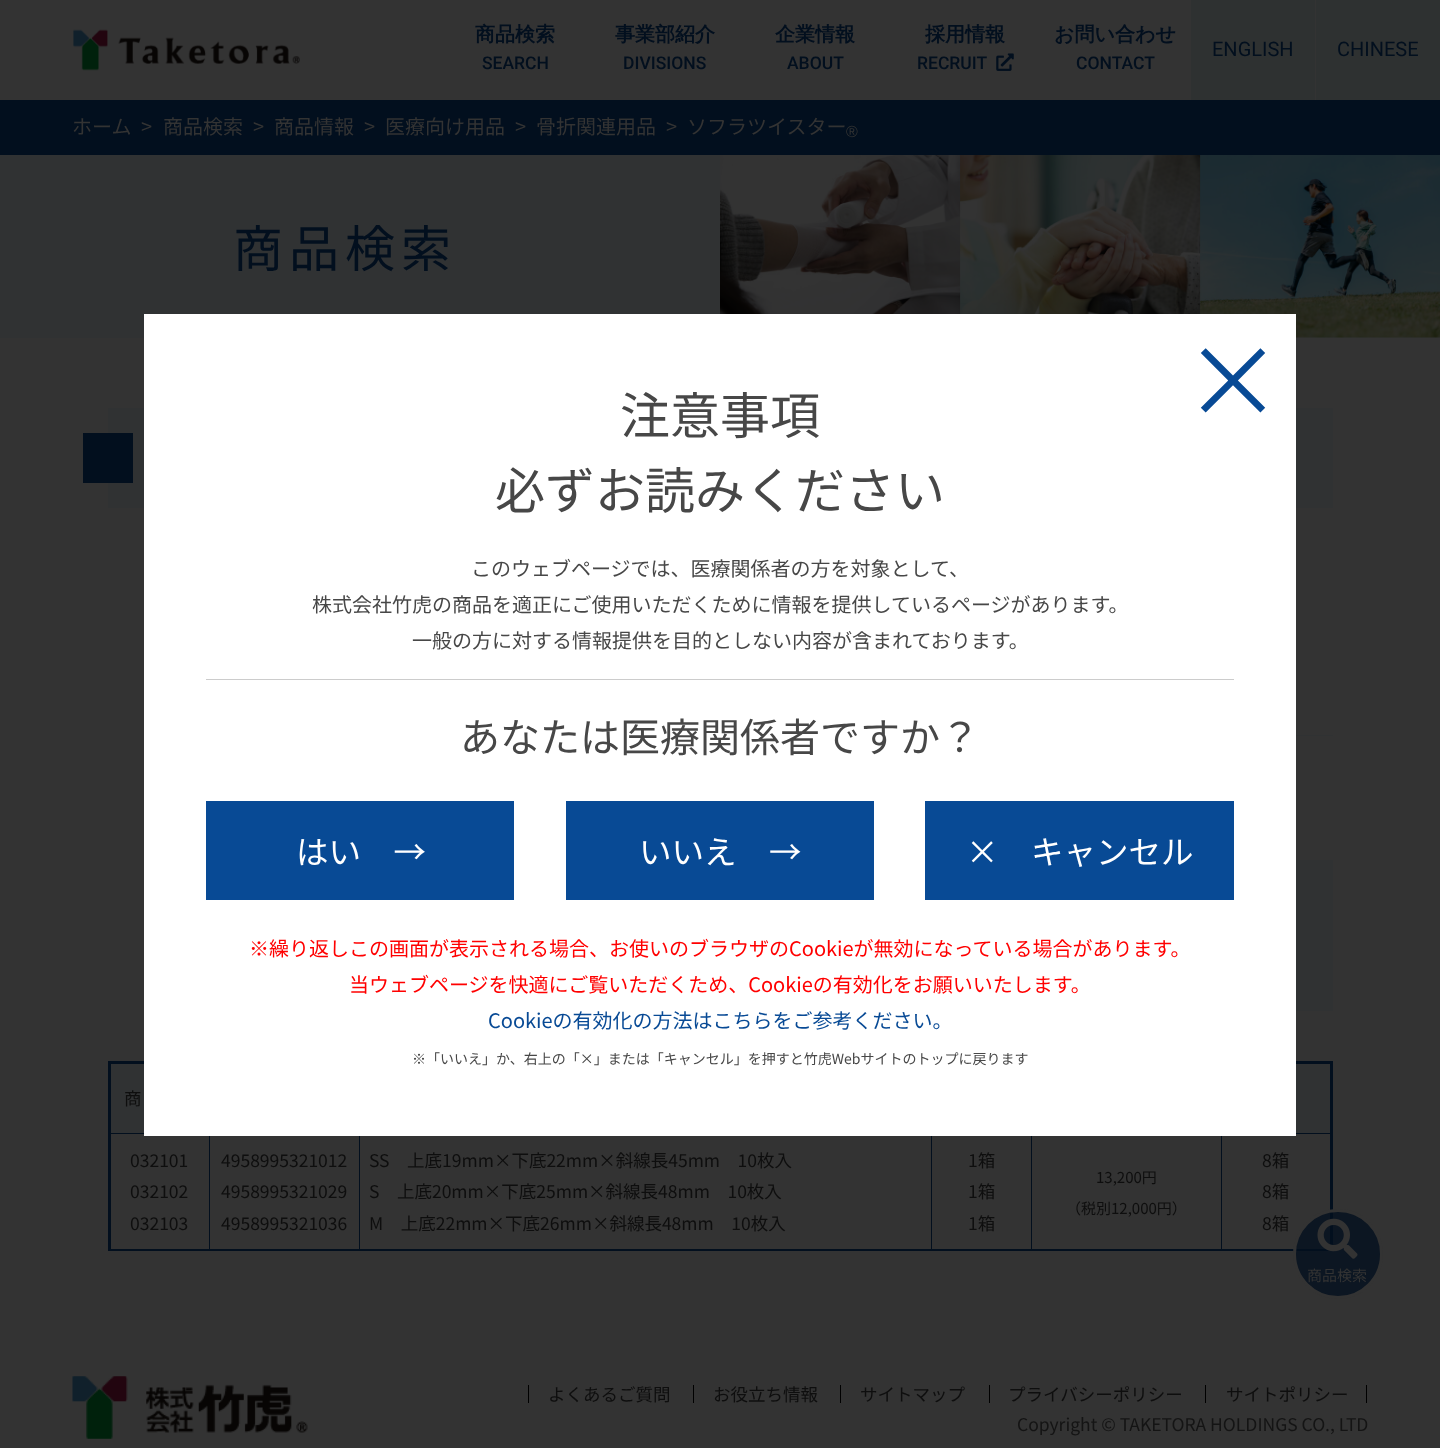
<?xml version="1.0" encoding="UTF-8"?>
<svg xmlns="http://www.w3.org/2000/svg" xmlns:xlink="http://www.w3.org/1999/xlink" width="1440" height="1448">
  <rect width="100%" height="100%" fill="#333333" />
  <image x="73" y="29" width="227" height="42" xlink:href="image1.png" />
  <image x="996" y="53" width="18" height="18" xlink:href="image2.png" />
  <rect x="1191" width="124" height="100" fill="#2e3131" />
  <rect x="1316" width="124" height="100" fill="#2e3131" />
  <rect y="100" width="1440" height="55" fill="#020f1e" />
  <rect y="155" width="1440" height="183" fill="#303233" />
  <image x="720" y="155" width="720" height="183" xlink:href="image3.png" />
  <rect x="108" y="408" width="1225" height="100" fill="#303233" />
  <rect x="108" y="1061" width="1225" height="3" fill="#020f1e" />
  <rect x="209" y="1133" width="1" height="117" fill="#020f1e" />
  <rect x="359" y="1133" width="1" height="117" fill="#020f1e" />
  <rect x="931" y="1133" width="1" height="117" fill="#020f1e" />
  <rect x="1031" y="1133" width="1" height="117" fill="#020f1e" />
  <rect x="1221" y="1133" width="1" height="117" fill="#020f1e" />
  <rect x="144" y="314" width="1152" height="822" fill="#ffffff" />
  <rect x="206" y="679" width="1028" height="1" fill="#cccccc" />
  <rect x="206" y="801" width="308" height="99" fill="#084a95" />
  <rect x="566" y="801" width="308" height="99" fill="#084a95" />
  <rect x="925" y="801" width="309" height="99" fill="#084a95" />
  <rect x="83" y="433" width="50" height="50" fill="#020f1e" />
  <rect x="1296" y="735" width="37" height="1" fill="#303233" />
  <rect x="1296" y="860" width="37" height="151" fill="#303233" />
  <rect x="1296" y="1133" width="37" height="1" fill="#020f1e" />
  <rect x="1330" y="1061" width="3" height="190" fill="#020f1e" />
  <rect x="108" y="1249" width="1225" height="2" fill="#020f1e" />
  <rect x="109" y="1133" width="35" height="1" fill="#020f1e" />
  <rect x="108" y="1061" width="3" height="190" fill="#020f1e" />
  <rect x="111" y="1064" width="33" height="69" fill="#303233" />
  <rect x="1296" y="1064" width="34" height="69" fill="#303233" />
  <circle cx="1338" cy="1254" r="43.5" fill="#020f1e" fill-opacity="0.8" stroke="#333333" stroke-width="3" />
  <image x="1317" y="1218" width="41" height="41" xlink:href="image4.png" />
  <image x="72" y="1376" width="236" height="63" xlink:href="image5.png" />
  <rect x="528" y="1385" width="1" height="18" fill="#000000" />
  <rect x="693" y="1385" width="1" height="18" fill="#000000" />
  <rect x="840" y="1385" width="1" height="18" fill="#000000" />
  <rect x="989" y="1385" width="1" height="18" fill="#000000" />
  <rect x="1366" y="1385" width="1" height="18" fill="#000000" />
  <rect x="1205" y="1385" width="1" height="18" fill="#000000" />
  <text x="475" y="41" style="font-family: WenQuanYi Zen Hei; font-size: 20px; font-weight: bold; fill: #020f1e">商品検索</text>
  <text x="482" y="69" style="font-family: Roboto; font-size: 17.5px; font-weight: 500; fill: #020f1e">SEARCH</text>
  <text x="615" y="41" style="font-family: WenQuanYi Zen Hei; font-size: 20px; font-weight: bold; fill: #020f1e">事業部紹介</text>
  <text x="623" y="69" style="font-family: Roboto; font-size: 17.5px; font-weight: 500; fill: #020f1e">DIVISIONS</text>
  <text x="775" y="41" style="font-family: WenQuanYi Zen Hei; font-size: 20px; font-weight: bold; fill: #020f1e">企業情報</text>
  <text x="787" y="69" style="font-family: Roboto; font-size: 17.5px; font-weight: 500; fill: #020f1e">ABOUT</text>
  <text x="925" y="41" style="font-family: WenQuanYi Zen Hei; font-size: 20px; font-weight: bold; fill: #020f1e">採用情報</text>
  <text x="917" y="69" style="font-family: Roboto; font-size: 17.5px; font-weight: 500; fill: #020f1e">RECRUIT</text>
  <text x="1054" y="41" style="font-family: WenQuanYi Zen Hei; font-size: 20px; font-weight: bold; fill: #020f1e">お問い合わせ</text>
  <text x="1076" y="69" style="font-family: Roboto; font-size: 17.5px; font-weight: 500; fill: #020f1e">CONTACT</text>
  <text x="1212" y="56" style="font-family: Roboto; font-size: 20px; fill: #020f1e">ENGLISH</text>
  <text x="1337" y="56" style="font-family: Roboto; font-size: 20px; fill: #020f1e">CHINESE</text>
  <text x="72" y="134" style="font-family: Noto Sans JP; font-size: 20px; fill: #333333">ホーム</text>
  <text x="141" y="134" style="font-family: Noto Sans JP; font-size: 20px; fill: #333333">&gt;</text>
  <text x="163" y="134" style="font-family: Noto Sans JP; font-size: 20px; fill: #333333">商品検索</text>
  <text x="253" y="134" style="font-family: Noto Sans JP; font-size: 20px; fill: #333333">&gt;</text>
  <text x="274" y="134" style="font-family: Noto Sans JP; font-size: 20px; fill: #333333">商品情報</text>
  <text x="364" y="134" style="font-family: Noto Sans JP; font-size: 20px; fill: #333333">&gt;</text>
  <text x="385" y="134" style="font-family: Noto Sans JP; font-size: 20px; fill: #333333">医療向け用品</text>
  <text x="515" y="134" style="font-family: Noto Sans JP; font-size: 20px; fill: #333333">&gt;</text>
  <text x="536" y="134" style="font-family: Noto Sans JP; font-size: 20px; fill: #333333">骨折関連用品</text>
  <text x="666" y="134" style="font-family: Noto Sans JP; font-size: 20px; fill: #333333">&gt;</text>
  <text x="687" y="134" style="font-family: Noto Sans JP; font-size: 20px; fill: #333333">ソフラツイスター</text>
  <text x="846" y="137" style="font-family: Liberation Sans; font-size: 16px; fill: #333333">®</text>
  <text x="233" y="267" style="font-family: Noto Sans JP; font-size: 50px; letter-spacing: 6px; fill: #020f1e">商品検索</text>
  <text x="1183" y="418" style="font-family: Noto Sans JP; font-size: 100px; fill: #084a95">×</text>
  <text x="620" y="434" style="font-family: Noto Sans JP; font-size: 50px; fill: #474747">注意事項</text>
  <text x="495" y="509" style="font-family: Noto Sans JP; font-size: 50px; fill: #474747">必ずお読みください</text>
  <text x="471" y="576" style="font-family: Noto Sans JP; font-size: 20px; fill: #474747">このウェブページでは、医療関係者の方を対象として、</text>
  <text x="312" y="612" style="font-family: Noto Sans JP; font-size: 20px; fill: #474747">株式会社竹虎の商品を適正にご使用いただくために情報を提供しているページがあります。</text>
  <text x="412" y="648" style="font-family: Noto Sans JP; font-size: 20px; fill: #474747">一般の方に対する情報提供を目的としない内容が含まれております。</text>
  <text x="460" y="752" style="font-family: Noto Sans JP; font-size: 40px; fill: #474747">あなたは医療関係者ですか？</text>
  <text x="296" y="864" style="font-family: Noto Sans JP; font-size: 32.5px; fill: #ffffff">はい　→</text>
  <text x="639" y="864" style="font-family: Noto Sans JP; font-size: 32.5px; fill: #ffffff">いいえ　→</text>
  <text x="966" y="864" style="font-family: Noto Sans JP; font-size: 32.5px; fill: #ffffff">×　キャンセル</text>
  <text x="249" y="956" style="font-family: Noto Sans JP; font-size: 20px; fill: #ff0000">※繰り返しこの画面が表示される場合、お使いのブラウザのCookieが無効になっている場合があります。</text>
  <text x="349" y="992" style="font-family: Noto Sans JP; font-size: 20px; fill: #ff0000">当ウェブページを快適にご覧いただくため、Cookieの有効化をお願いいたします。</text>
  <text x="488" y="1028" style="font-family: Noto Sans JP; font-size: 20px; fill: #084a95">Cookieの有効化の方法はこちらをご参考ください。</text>
  <text x="412" y="1064" style="font-family: Noto Sans JP; font-size: 14px; fill: #474747">※「いいえ」か、右上の「×」または「キャンセル」を押すと竹虎Webサイトのトップに戻ります</text>
  <text x="124" y="1105" style="font-family: Noto Sans JP; font-size: 17.5px; fill: #0e0e0e">商</text>
  <text x="130" y="1167" style="font-family: Noto Sans JP; font-size: 17.5px; fill: #0e0e0e">032101</text>
  <text x="130" y="1198" style="font-family: Noto Sans JP; font-size: 17.5px; fill: #0e0e0e">032102</text>
  <text x="130" y="1230" style="font-family: Noto Sans JP; font-size: 17.5px; fill: #0e0e0e">032103</text>
  <text x="221" y="1167" style="font-family: Noto Sans JP; font-size: 17.5px; fill: #0e0e0e">4958995321012</text>
  <text x="221" y="1198" style="font-family: Noto Sans JP; font-size: 17.5px; fill: #0e0e0e">4958995321029</text>
  <text x="221" y="1230" style="font-family: Noto Sans JP; font-size: 17.5px; fill: #0e0e0e">4958995321036</text>
  <text x="369" y="1167" style="font-family: Noto Sans JP; font-size: 17.5px; fill: #0e0e0e">SS　上底19mm×下底22mm×斜線長45mm　10枚入</text>
  <text x="369" y="1198" style="font-family: Noto Sans JP; font-size: 17.5px; fill: #0e0e0e">S　上底20mm×下底25mm×斜線長48mm　10枚入</text>
  <text x="369" y="1230" style="font-family: Noto Sans JP; font-size: 17.5px; fill: #0e0e0e">M　上底22mm×下底26mm×斜線長48mm　10枚入</text>
  <text x="968" y="1167" style="font-family: Noto Sans JP; font-size: 17.5px; fill: #0e0e0e">1箱</text>
  <text x="968" y="1198" style="font-family: Noto Sans JP; font-size: 17.5px; fill: #0e0e0e">1箱</text>
  <text x="968" y="1230" style="font-family: Noto Sans JP; font-size: 17.5px; fill: #0e0e0e">1箱</text>
  <text x="1096" y="1183" style="font-family: Noto Sans JP; font-size: 15px; fill: #0e0e0e">13,200円</text>
  <text x="1066" y="1214" style="font-family: Noto Sans JP; font-size: 15px; fill: #0e0e0e">（税別12,000円）</text>
  <text x="1262" y="1167" style="font-family: Noto Sans JP; font-size: 17.5px; fill: #0e0e0e">8箱</text>
  <text x="1262" y="1198" style="font-family: Noto Sans JP; font-size: 17.5px; fill: #0e0e0e">8箱</text>
  <text x="1262" y="1230" style="font-family: Noto Sans JP; font-size: 17.5px; fill: #0e0e0e">8箱</text>
  <text x="1307" y="1281" style="font-family: Noto Sans JP; font-size: 15px; fill: #333333">商品検索</text>
  <text x="548" y="1401" style="font-family: Noto Sans JP; font-size: 17.5px; fill: #0e0e0e">よくあるご質問</text>
  <text x="713" y="1401" style="font-family: Noto Sans JP; font-size: 17.5px; fill: #0e0e0e">お役立ち情報</text>
  <text x="860" y="1401" style="font-family: Noto Sans JP; font-size: 17.5px; fill: #0e0e0e">サイトマップ</text>
  <text x="1008" y="1401" style="font-family: Noto Sans JP; font-size: 17.5px; fill: #0e0e0e">プライバシーポリシー</text>
  <text x="1226" y="1401" style="font-family: Noto Sans JP; font-size: 17.5px; fill: #0e0e0e">サイトポリシー</text>
  <text x="1017" y="1431" style="font-family: Noto Sans JP; font-size: 17.5px; fill: #141414">Copyright © TAKETORA HOLDINGS CO., LTD</text>
</svg>
